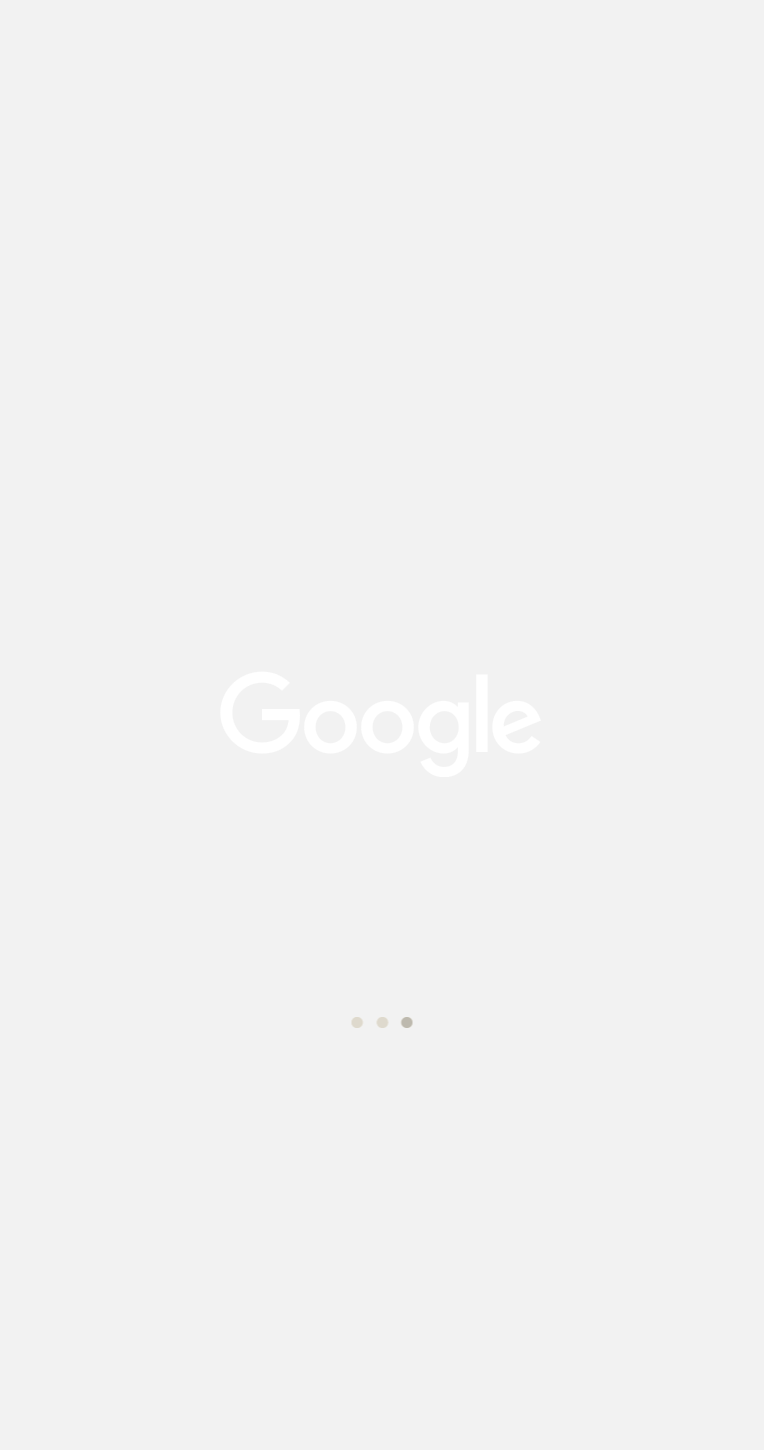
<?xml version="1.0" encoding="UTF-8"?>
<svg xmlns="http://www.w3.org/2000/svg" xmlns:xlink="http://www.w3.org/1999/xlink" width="764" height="1450">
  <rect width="100%" height="100%" fill="#f2f2f2" />
  <image x="220" y="671" width="321" height="106" xlink:href="image1.png" />
  <image x="351" y="1017" width="62" height="11" xlink:href="image2.png" />
</svg>
